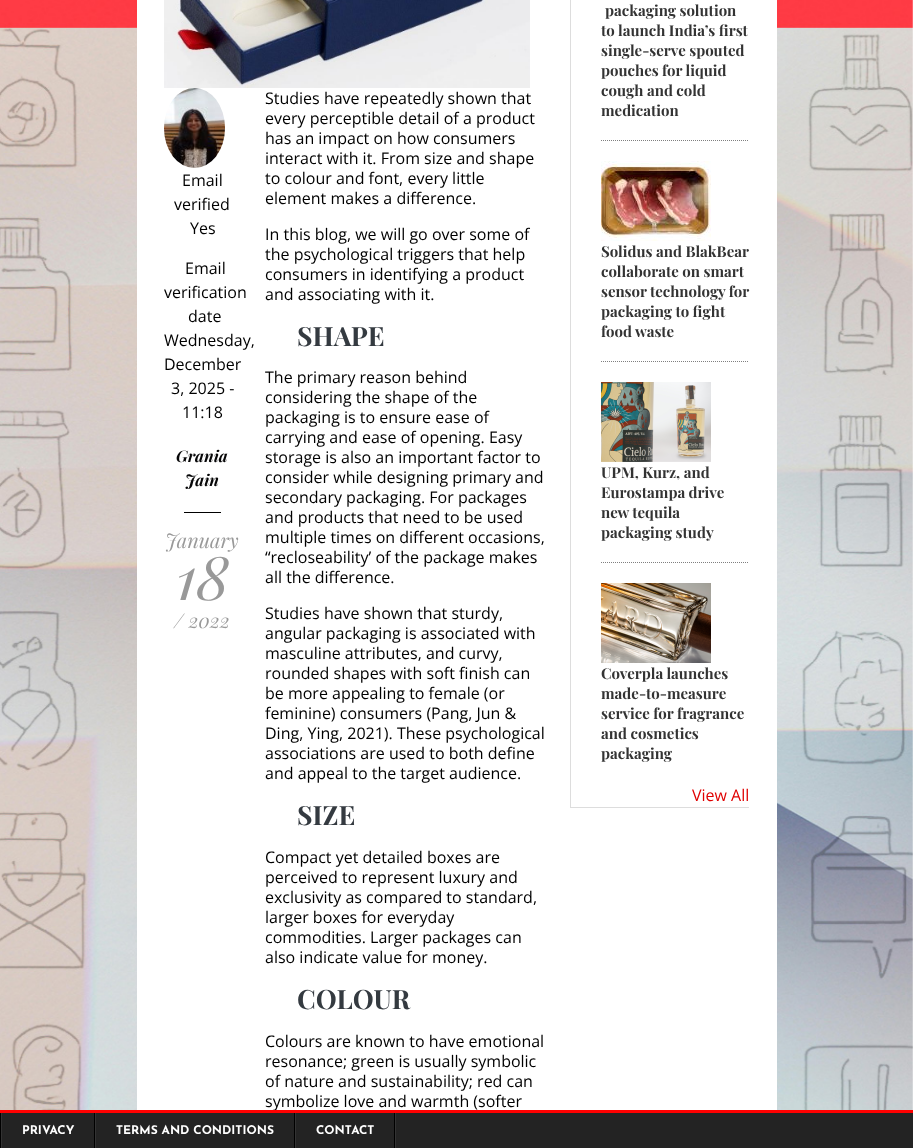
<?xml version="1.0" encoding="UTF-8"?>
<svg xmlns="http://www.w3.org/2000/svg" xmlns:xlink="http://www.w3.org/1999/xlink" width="913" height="1148">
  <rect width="100%" height="100%" fill="#ffffff" />
  <image x="0" y="0" width="913" height="1110" xlink:href="image1.png" />
  <rect x="137" width="640" height="1110" fill="#ffffff" />
  <image x="164" y="0" width="366" height="88" xlink:href="image2.png" />
  <image x="164" y="88" width="61" height="80" xlink:href="image3.png" />
  <rect x="184" y="512" width="37" height="1" fill="#000000" />
  <rect x="570" y="807" width="179" height="1" fill="#dddddd" />
  <rect x="570" width="1" height="808" fill="#dddddd" />
  <path d="M 601 140.5 h 148" fill="none" stroke="#7f7f7f" stroke-dasharray="1 1" />
  <path d="M 601 361.5 h 148" fill="none" stroke="#7f7f7f" stroke-dasharray="1 1" />
  <image x="601" y="161" width="110" height="80" xlink:href="image4.png" />
  <path d="M 601 562.5 h 148" fill="none" stroke="#7f7f7f" stroke-dasharray="1 1" />
  <image x="601" y="382" width="110" height="80" xlink:href="image5.png" />
  <image x="601" y="583" width="110" height="80" xlink:href="image6.png" />
  <rect x="2" y="1113" width="911" height="35" fill="#232323" />
  <rect x="395" y="1113" width="1" height="35" fill="#333333" />
  <rect y="1113" width="1" height="35" fill="#000000" />
  <rect x="94" y="1113" width="1" height="35" fill="#000000" />
  <rect x="1" y="1113" width="1" height="35" fill="#333333" />
  <rect x="294" y="1113" width="1" height="35" fill="#000000" />
  <rect x="95" y="1113" width="1" height="35" fill="#333333" />
  <rect x="394" y="1113" width="1" height="35" fill="#000000" />
  <rect x="295" y="1113" width="1" height="35" fill="#333333" />
  <text x="182" y="186" style="font-family: Open Sans; font-size: 16px; fill: #000000">Email</text>
  <text x="174" y="210" style="font-family: Open Sans; font-size: 16px; fill: #000000">verified</text>
  <text x="190" y="234" style="font-family: Open Sans; font-size: 16px; fill: #000000">Yes</text>
  <text x="185" y="274" style="font-family: Open Sans; font-size: 16px; fill: #000000">Email</text>
  <text x="164" y="298" style="font-family: Open Sans; font-size: 16px; fill: #000000">verification</text>
  <text x="188" y="322" style="font-family: Open Sans; font-size: 16px; fill: #000000">date</text>
  <text x="164" y="346" style="font-family: Open Sans; font-size: 16px; fill: #000000">Wednesday,</text>
  <text x="164" y="370" style="font-family: Open Sans; font-size: 16px; fill: #000000">December</text>
  <text x="171" y="394" style="font-family: Open Sans; font-size: 16px; fill: #000000">3, 2025 -</text>
  <text x="182" y="418" style="font-family: Open Sans; font-size: 16px; fill: #000000">11:18</text>
  <text x="176" y="462" style="font-family: Playfair Display; font-size: 16px; font-weight: bold; font-style: italic; fill: #060607">Grania</text>
  <text x="185" y="486" style="font-family: Playfair Display; font-size: 16px; font-weight: bold; font-style: italic; fill: #060607">Jain</text>
  <text x="165" y="548" style="font-family: Playfair Display; font-size: 20px; font-style: italic; fill: #999999">January</text>
  <text x="176" y="600" style="font-family: Playfair Display; font-size: 60px; font-style: italic; fill: #999999">18</text>
  <text x="174" y="628" style="font-family: Playfair Display; font-size: 20px; font-style: italic; fill: #999999">/ 2022</text>
  <text x="265" y="104" style="font-family: Open Sans; font-size: 16px; fill: #000000">Studies have repeatedly shown that</text>
  <text x="265" y="124" style="font-family: Open Sans; font-size: 16px; fill: #000000">every perceptible detail of a product</text>
  <text x="265" y="144" style="font-family: Open Sans; font-size: 16px; fill: #000000">has an impact on how consumers</text>
  <text x="265" y="164" style="font-family: Open Sans; font-size: 16px; fill: #000000">interact with it. From size and shape</text>
  <text x="265" y="184" style="font-family: Open Sans; font-size: 16px; fill: #000000">to colour and font, every little</text>
  <text x="265" y="204" style="font-family: Open Sans; font-size: 16px; fill: #000000">element makes a difference.</text>
  <text x="265" y="240" style="font-family: Open Sans; font-size: 16px; fill: #000000">In this blog, we will go over some of</text>
  <text x="265" y="260" style="font-family: Open Sans; font-size: 16px; fill: #000000">the psychological triggers that help</text>
  <text x="265" y="280" style="font-family: Open Sans; font-size: 16px; fill: #000000">consumers in identifying a product</text>
  <text x="265" y="300" style="font-family: Open Sans; font-size: 16px; fill: #000000">and associating with it.</text>
  <text x="297" y="346" style="font-family: Playfair Display; font-size: 26.5px; font-weight: bold; fill: #343a40">SHAPE</text>
  <text x="265" y="383" style="font-family: Open Sans; font-size: 16px; fill: #000000">The primary reason behind</text>
  <text x="265" y="403" style="font-family: Open Sans; font-size: 16px; fill: #000000">considering the shape of the</text>
  <text x="265" y="423" style="font-family: Open Sans; font-size: 16px; fill: #000000">packaging is to ensure ease of</text>
  <text x="265" y="443" style="font-family: Open Sans; font-size: 16px; fill: #000000">carrying and ease of opening. Easy</text>
  <text x="265" y="463" style="font-family: Open Sans; font-size: 16px; fill: #000000">storage is also an important factor to</text>
  <text x="265" y="483" style="font-family: Open Sans; font-size: 16px; fill: #000000">consider while designing primary and</text>
  <text x="265" y="503" style="font-family: Open Sans; font-size: 16px; fill: #000000">secondary packaging. For packages</text>
  <text x="265" y="523" style="font-family: Open Sans; font-size: 16px; fill: #000000">and products that need to be used</text>
  <text x="265" y="543" style="font-family: Open Sans; font-size: 16px; fill: #000000">multiple times on different occasions,</text>
  <text x="265" y="563" style="font-family: Open Sans; font-size: 16px; fill: #000000">“recloseability’ of the package makes</text>
  <text x="265" y="583" style="font-family: Open Sans; font-size: 16px; fill: #000000">all the difference.</text>
  <text x="265" y="619" style="font-family: Open Sans; font-size: 16px; fill: #000000">Studies have shown that sturdy,</text>
  <text x="265" y="639" style="font-family: Open Sans; font-size: 16px; fill: #000000">angular packaging is associated with</text>
  <text x="265" y="659" style="font-family: Open Sans; font-size: 16px; fill: #000000">masculine attributes, and curvy,</text>
  <text x="265" y="679" style="font-family: Open Sans; font-size: 16px; fill: #000000">rounded shapes with soft finish can</text>
  <text x="265" y="699" style="font-family: Open Sans; font-size: 16px; fill: #000000">be more appealing to female (or</text>
  <text x="265" y="719" style="font-family: Open Sans; font-size: 16px; fill: #000000">feminine) consumers (Pang, Jun &amp;</text>
  <text x="265" y="739" style="font-family: Open Sans; font-size: 16px; fill: #000000">Ding, Ying, 2021). These psychological</text>
  <text x="265" y="759" style="font-family: Open Sans; font-size: 16px; fill: #000000">associations are used to both define</text>
  <text x="265" y="779" style="font-family: Open Sans; font-size: 16px; fill: #000000">and appeal to the target audience.</text>
  <text x="297" y="825" style="font-family: Playfair Display; font-size: 26.5px; font-weight: bold; fill: #343a40">SIZE</text>
  <text x="265" y="863" style="font-family: Open Sans; font-size: 16px; fill: #000000">Compact yet detailed boxes are</text>
  <text x="265" y="883" style="font-family: Open Sans; font-size: 16px; fill: #000000">perceived to represent luxury and</text>
  <text x="265" y="903" style="font-family: Open Sans; font-size: 16px; fill: #000000">exclusivity as compared to standard,</text>
  <text x="265" y="923" style="font-family: Open Sans; font-size: 16px; fill: #000000">larger boxes for everyday</text>
  <text x="265" y="943" style="font-family: Open Sans; font-size: 16px; fill: #000000">commodities. Larger packages can</text>
  <text x="265" y="963" style="font-family: Open Sans; font-size: 16px; fill: #000000">also indicate value for money.</text>
  <text x="297" y="1009" style="font-family: Playfair Display; font-size: 26.5px; font-weight: bold; fill: #343a40">COLOUR</text>
  <text x="265" y="1047" style="font-family: Open Sans; font-size: 16px; fill: #000000">Colours are known to have emotional</text>
  <text x="265" y="1067" style="font-family: Open Sans; font-size: 16px; fill: #000000">resonance; green is usually symbolic</text>
  <text x="265" y="1087" style="font-family: Open Sans; font-size: 16px; fill: #000000">of nature and sustainability; red can</text>
  <text x="265" y="1107" style="font-family: Open Sans; font-size: 16px; fill: #000000">symbolize love and warmth (softer</text>
  <text x="605" y="16" style="font-family: Playfair Display; font-size: 15px; font-weight: bold; fill: #333333">packaging solution</text>
  <text x="601" y="36" style="font-family: Playfair Display; font-size: 15px; font-weight: bold; fill: #333333">to launch India’s first</text>
  <text x="601" y="56" style="font-family: Playfair Display; font-size: 15px; font-weight: bold; fill: #333333">single-serve spouted</text>
  <text x="601" y="76" style="font-family: Playfair Display; font-size: 15px; font-weight: bold; fill: #333333">pouches for liquid</text>
  <text x="601" y="96" style="font-family: Playfair Display; font-size: 15px; font-weight: bold; fill: #333333">cough and cold</text>
  <text x="601" y="116" style="font-family: Playfair Display; font-size: 15px; font-weight: bold; fill: #333333">medication</text>
  <text x="601" y="257" style="font-family: Playfair Display; font-size: 15px; font-weight: bold; fill: #333333">Solidus and BlakBear</text>
  <text x="601" y="277" style="font-family: Playfair Display; font-size: 15px; font-weight: bold; fill: #333333">collaborate on smart</text>
  <text x="601" y="297" style="font-family: Playfair Display; font-size: 15px; font-weight: bold; fill: #333333">sensor technology for</text>
  <text x="601" y="317" style="font-family: Playfair Display; font-size: 15px; font-weight: bold; fill: #333333">packaging to fight</text>
  <text x="601" y="337" style="font-family: Playfair Display; font-size: 15px; font-weight: bold; fill: #333333">food waste</text>
  <text x="601" y="478" style="font-family: Playfair Display; font-size: 15px; font-weight: bold; fill: #333333">UPM, Kurz, and</text>
  <text x="601" y="498" style="font-family: Playfair Display; font-size: 15px; font-weight: bold; fill: #333333">Eurostampa drive</text>
  <text x="601" y="518" style="font-family: Playfair Display; font-size: 15px; font-weight: bold; fill: #333333">new tequila</text>
  <text x="601" y="538" style="font-family: Playfair Display; font-size: 15px; font-weight: bold; fill: #333333">packaging study</text>
  <text x="601" y="679" style="font-family: Playfair Display; font-size: 15px; font-weight: bold; fill: #333333">Coverpla launches</text>
  <text x="601" y="699" style="font-family: Playfair Display; font-size: 15px; font-weight: bold; fill: #333333">made-to-measure</text>
  <text x="601" y="719" style="font-family: Playfair Display; font-size: 15px; font-weight: bold; fill: #333333">service for fragrance</text>
  <text x="601" y="739" style="font-family: Playfair Display; font-size: 15px; font-weight: bold; fill: #333333">and cosmetics</text>
  <text x="601" y="759" style="font-family: Playfair Display; font-size: 15px; font-weight: bold; fill: #333333">packaging</text>
  <text x="692" y="801" style="font-family: Open Sans; font-size: 16px; fill: #e00000">View All</text>
  <rect y="1110" width="913" height="3" fill="#ff0000" />
  <text x="22" y="1134" style="font-family: Josefin Sans; font-size: 12px; font-weight: bold; fill: #ffffff">PRIVACY</text>
  <text x="116" y="1134" style="font-family: Josefin Sans; font-size: 12px; font-weight: bold; fill: #ffffff">TERMS AND CONDITIONS</text>
  <text x="316" y="1134" style="font-family: Josefin Sans; font-size: 12px; font-weight: bold; fill: #ffffff">CONTACT</text>
</svg>
